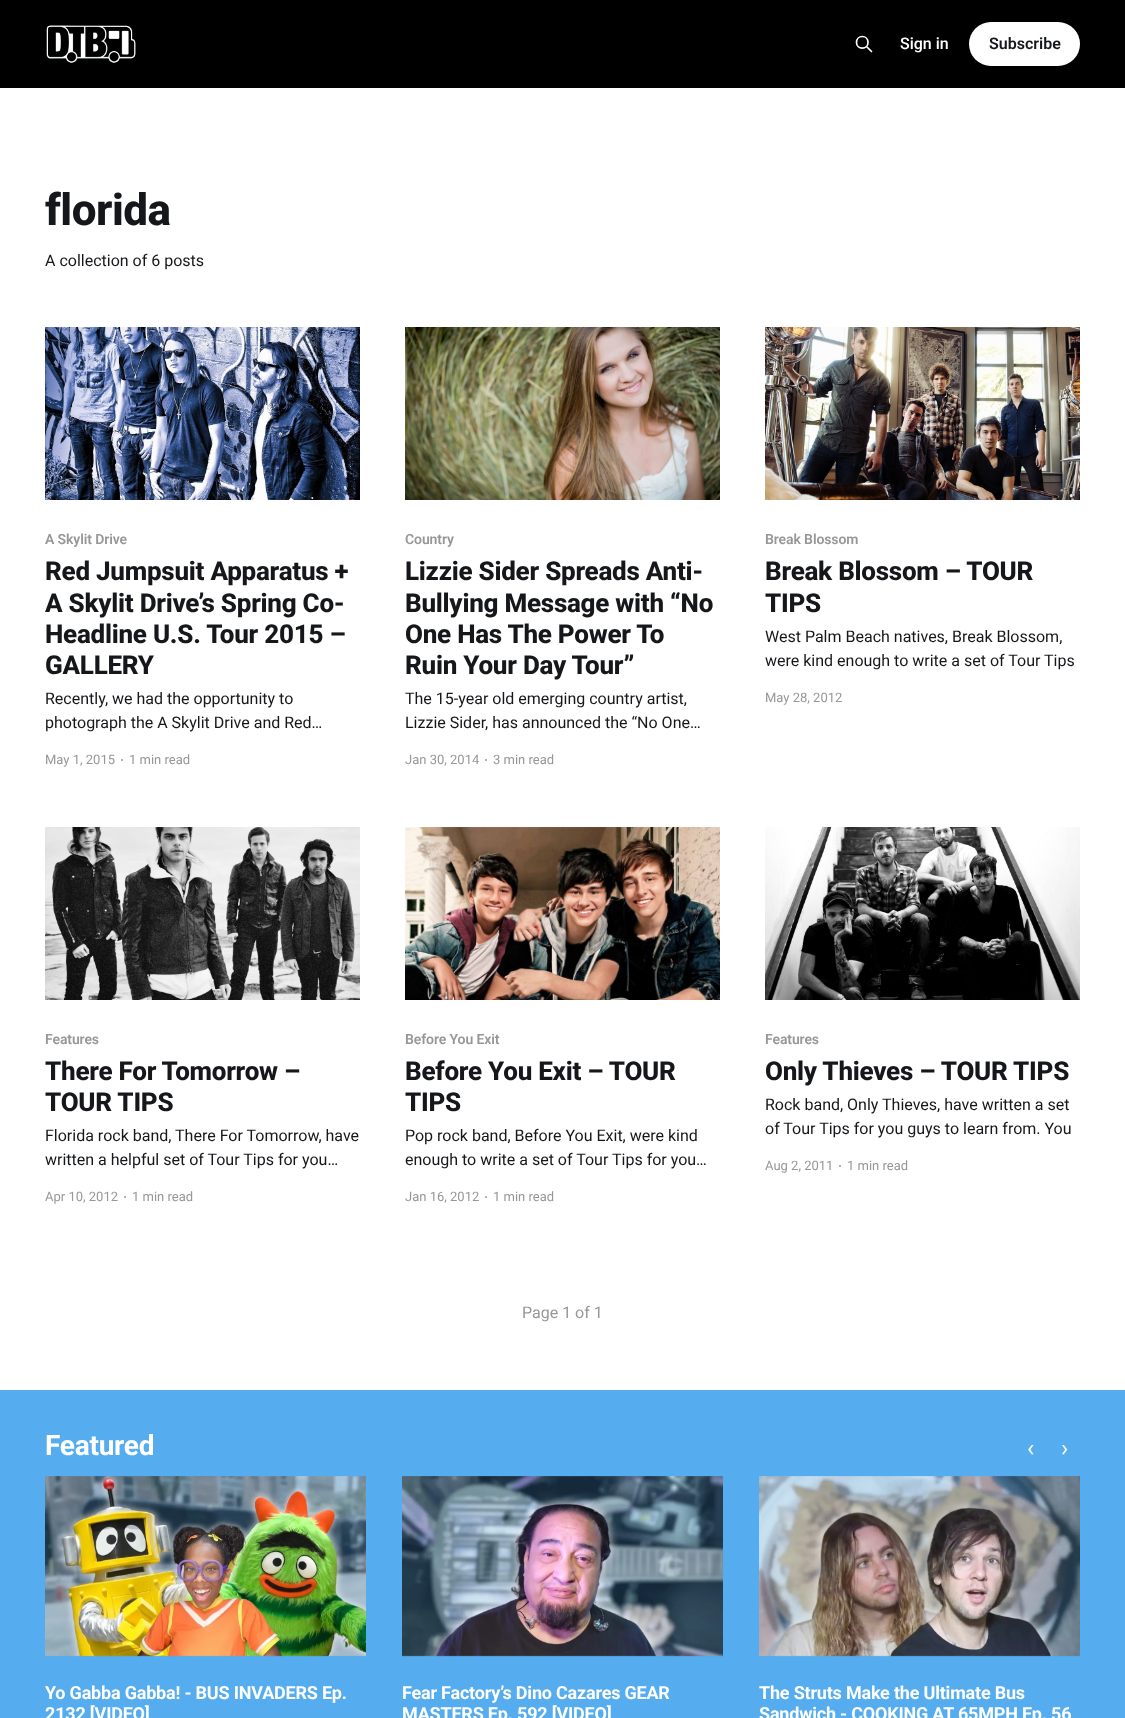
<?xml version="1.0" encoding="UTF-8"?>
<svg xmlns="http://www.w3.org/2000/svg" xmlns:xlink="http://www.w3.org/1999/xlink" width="1125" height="1718">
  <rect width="100%" height="100%" fill="#ffffff" />
  <rect width="1125" height="88" fill="#000000" />
  <image x="46" y="25" width="90" height="38" xlink:href="image1.png" />
  <path d="M 871.5 51.5 l -5 -5 m 1.5 -4 c 0 7.5 -11.5 7.5 -11.5 0 c 0 -8 11.5 -8 11.5 0 z" fill="none" stroke="#ffffff" stroke-width="1.7" stroke-linecap="round" stroke-linejoin="round" />
  <rect x="969" y="22" width="111" height="44" rx="22" fill="#ffffff" />
  <image x="45" y="327" width="315" height="173" xlink:href="image2.png" />
  <circle cx="122" cy="760" r="1" fill="#979797" />
  <image x="405" y="327" width="315" height="173" xlink:href="image3.png" />
  <circle cx="486" cy="760" r="1" fill="#979797" />
  <image x="765" y="327" width="315" height="173" xlink:href="image4.png" />
  <image x="45" y="827" width="315" height="173" xlink:href="image5.png" />
  <circle cx="125" cy="1197" r="1" fill="#979797" />
  <image x="405" y="827" width="315" height="173" xlink:href="image6.png" />
  <circle cx="486" cy="1197" r="1" fill="#979797" />
  <image x="765" y="827" width="315" height="173" xlink:href="image7.png" />
  <circle cx="840" cy="1166" r="1" fill="#979797" />
  <rect y="1390" width="1125" height="328" fill="#55acee" />
  <image x="45" y="1476" width="321" height="181" xlink:href="image8.png" />
  <image x="402" y="1476" width="321" height="181" xlink:href="image9.png" />
  <image x="759" y="1476" width="321" height="181" xlink:href="image10.png" />
  <text x="900" y="49" style="font-family: Roboto; font-size: 16px; font-weight: 500; fill: #ffffff">Sign in</text>
  <text x="989" y="49" style="font-family: Roboto; font-size: 16px; font-weight: 600; fill: #15171a">Subscribe</text>
  <text x="45" y="225" style="font-family: Roboto; font-size: 44px; font-weight: 800; letter-spacing: -0.5px; fill: #15171a">florida</text>
  <text x="45" y="266" style="font-family: Roboto; font-size: 16px; fill: #15171a">A collection of 6 posts</text>
  <text x="45" y="544" style="font-family: Roboto; font-size: 14px; font-weight: 600; letter-spacing: -0.1px; fill: #979797">A Skylit Drive</text>
  <text x="45" y="580" style="font-family: Roboto; font-size: 26px; font-weight: 800; letter-spacing: -0.25px; fill: #15171a">Red Jumpsuit Apparatus +</text>
  <text x="45" y="612" style="font-family: Roboto; font-size: 26px; font-weight: 800; letter-spacing: -0.25px; fill: #15171a">A Skylit Drive’s Spring Co-</text>
  <text x="45" y="643" style="font-family: Roboto; font-size: 26px; font-weight: 800; letter-spacing: -0.25px; fill: #15171a">Headline U.S. Tour 2015 –</text>
  <text x="45" y="674" style="font-family: Roboto; font-size: 26px; font-weight: 800; letter-spacing: -0.25px; fill: #15171a">GALLERY</text>
  <text x="45" y="704" style="font-family: Roboto; font-size: 16px; fill: #15171a">Recently, we had the opportunity to</text>
  <text x="45" y="728" style="font-family: Roboto; font-size: 16px; fill: #15171a">photograph the A Skylit Drive and Red…</text>
  <text x="45" y="764" style="font-family: Roboto; font-size: 13px; fill: #979797">May 1, 2015</text>
  <text x="129" y="764" style="font-family: Roboto; font-size: 13px; fill: #979797">1 min read</text>
  <text x="405" y="544" style="font-family: Roboto; font-size: 14px; font-weight: 600; letter-spacing: -0.1px; fill: #979797">Country</text>
  <text x="405" y="580" style="font-family: Roboto; font-size: 26px; font-weight: 800; letter-spacing: -0.25px; fill: #15171a">Lizzie Sider Spreads Anti-</text>
  <text x="405" y="612" style="font-family: Roboto; font-size: 26px; font-weight: 800; letter-spacing: -0.25px; fill: #15171a">Bullying Message with “No</text>
  <text x="405" y="643" style="font-family: Roboto; font-size: 26px; font-weight: 800; letter-spacing: -0.25px; fill: #15171a">One Has The Power To</text>
  <text x="405" y="674" style="font-family: Roboto; font-size: 26px; font-weight: 800; letter-spacing: -0.25px; fill: #15171a">Ruin Your Day Tour”</text>
  <text x="405" y="704" style="font-family: Roboto; font-size: 16px; fill: #15171a">The 15-year old emerging country artist,</text>
  <text x="405" y="728" style="font-family: Roboto; font-size: 16px; fill: #15171a">Lizzie Sider, has announced the “No One…</text>
  <text x="405" y="764" style="font-family: Roboto; font-size: 13px; fill: #979797">Jan 30, 2014</text>
  <text x="493" y="764" style="font-family: Roboto; font-size: 13px; fill: #979797">3 min read</text>
  <text x="765" y="544" style="font-family: Roboto; font-size: 14px; font-weight: 600; letter-spacing: -0.1px; fill: #979797">Break Blossom</text>
  <text x="765" y="580" style="font-family: Roboto; font-size: 26px; font-weight: 800; letter-spacing: -0.25px; fill: #15171a">Break Blossom – TOUR</text>
  <text x="765" y="612" style="font-family: Roboto; font-size: 26px; font-weight: 800; letter-spacing: -0.25px; fill: #15171a">TIPS</text>
  <text x="765" y="642" style="font-family: Roboto; font-size: 16px; fill: #15171a">West Palm Beach natives, Break Blossom,</text>
  <text x="765" y="666" style="font-family: Roboto; font-size: 16px; fill: #15171a">were kind enough to write a set of Tour Tips</text>
  <text x="765" y="702" style="font-family: Roboto; font-size: 13px; fill: #979797">May 28, 2012</text>
  <text x="45" y="1044" style="font-family: Roboto; font-size: 14px; font-weight: 600; letter-spacing: -0.1px; fill: #979797">Features</text>
  <text x="45" y="1080" style="font-family: Roboto; font-size: 26px; font-weight: 800; letter-spacing: -0.25px; fill: #15171a">There For Tomorrow –</text>
  <text x="45" y="1111" style="font-family: Roboto; font-size: 26px; font-weight: 800; letter-spacing: -0.25px; fill: #15171a">TOUR TIPS</text>
  <text x="45" y="1141" style="font-family: Roboto; font-size: 16px; fill: #15171a">Florida rock band, There For Tomorrow, have</text>
  <text x="45" y="1165" style="font-family: Roboto; font-size: 16px; fill: #15171a">written a helpful set of Tour Tips for you…</text>
  <text x="45" y="1201" style="font-family: Roboto; font-size: 13px; fill: #979797">Apr 10, 2012</text>
  <text x="132" y="1201" style="font-family: Roboto; font-size: 13px; fill: #979797">1 min read</text>
  <text x="405" y="1044" style="font-family: Roboto; font-size: 14px; font-weight: 600; letter-spacing: -0.1px; fill: #979797">Before You Exit</text>
  <text x="405" y="1080" style="font-family: Roboto; font-size: 26px; font-weight: 800; letter-spacing: -0.25px; fill: #15171a">Before You Exit – TOUR</text>
  <text x="405" y="1111" style="font-family: Roboto; font-size: 26px; font-weight: 800; letter-spacing: -0.25px; fill: #15171a">TIPS</text>
  <text x="405" y="1141" style="font-family: Roboto; font-size: 16px; fill: #15171a">Pop rock band, Before You Exit, were kind</text>
  <text x="405" y="1165" style="font-family: Roboto; font-size: 16px; fill: #15171a">enough to write a set of Tour Tips for you…</text>
  <text x="405" y="1201" style="font-family: Roboto; font-size: 13px; fill: #979797">Jan 16, 2012</text>
  <text x="493" y="1201" style="font-family: Roboto; font-size: 13px; fill: #979797">1 min read</text>
  <text x="765" y="1044" style="font-family: Roboto; font-size: 14px; font-weight: 600; letter-spacing: -0.1px; fill: #979797">Features</text>
  <text x="765" y="1080" style="font-family: Roboto; font-size: 26px; font-weight: 800; letter-spacing: -0.25px; fill: #15171a">Only Thieves – TOUR TIPS</text>
  <text x="765" y="1110" style="font-family: Roboto; font-size: 16px; fill: #15171a">Rock band, Only Thieves, have written a set</text>
  <text x="765" y="1134" style="font-family: Roboto; font-size: 16px; fill: #15171a">of Tour Tips for you guys to learn from. You</text>
  <text x="765" y="1170" style="font-family: Roboto; font-size: 13px; fill: #979797">Aug 2, 2011</text>
  <text x="847" y="1170" style="font-family: Roboto; font-size: 13px; fill: #979797">1 min read</text>
  <text x="522" y="1318" style="font-family: Roboto; font-size: 16px; fill: #979797">Page 1 of 1</text>
  <text x="45" y="1455" style="font-family: Roboto; font-size: 28px; font-weight: bold; letter-spacing: -0.25px; fill: #ffffff">Featured</text>
  <text x="1027" y="1456" style="font-family: Roboto; font-size: 24px; fill: #ffffff">‹</text>
  <text x="1061" y="1456" style="font-family: Roboto; font-size: 24px; fill: #ffffff">›</text>
  <text x="45" y="1699" style="font-family: Roboto; font-size: 18px; font-weight: bold; letter-spacing: -0.2px; fill: #ffffff">Yo Gabba Gabba! - BUS INVADERS Ep.</text>
  <text x="45" y="1720" style="font-family: Roboto; font-size: 18px; font-weight: bold; letter-spacing: -0.2px; fill: #ffffff">2132 [VIDEO]</text>
  <text x="402" y="1699" style="font-family: Roboto; font-size: 18px; font-weight: bold; letter-spacing: -0.2px; fill: #ffffff">Fear Factory’s Dino Cazares GEAR</text>
  <text x="402" y="1720" style="font-family: Roboto; font-size: 18px; font-weight: bold; letter-spacing: -0.2px; fill: #ffffff">MASTERS Ep. 592 [VIDEO]</text>
  <text x="759" y="1699" style="font-family: Roboto; font-size: 18px; font-weight: bold; letter-spacing: -0.2px; fill: #ffffff">The Struts Make the Ultimate Bus</text>
  <text x="759" y="1720" style="font-family: Roboto; font-size: 18px; font-weight: bold; letter-spacing: -0.2px; fill: #ffffff">Sandwich - COOKING AT 65MPH Ep. 56</text>
</svg>
